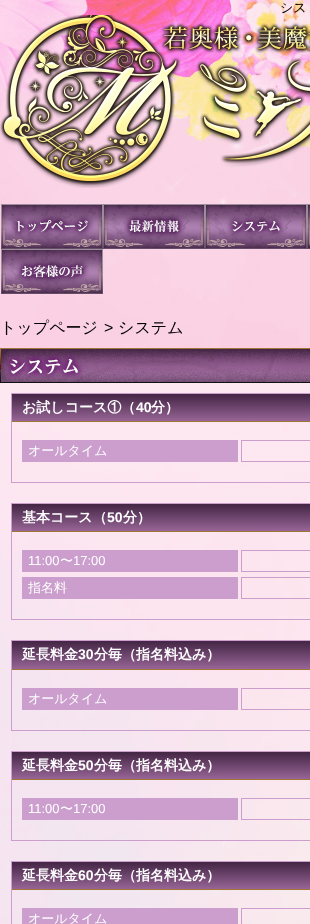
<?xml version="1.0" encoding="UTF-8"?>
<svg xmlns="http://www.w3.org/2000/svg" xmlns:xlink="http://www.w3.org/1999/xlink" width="310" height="924">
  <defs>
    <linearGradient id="g1" gradientUnits="userSpaceOnUse" x1="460" y1="394" x2="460" y2="421"><stop offset="0" stop-color="#432544" /><stop offset="1" stop-color="#976596" /></linearGradient>
    <linearGradient id="g2" gradientUnits="userSpaceOnUse" x1="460" y1="504" x2="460" y2="531"><stop offset="0" stop-color="#432544" /><stop offset="1" stop-color="#976596" /></linearGradient>
    <linearGradient id="g3" gradientUnits="userSpaceOnUse" x1="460" y1="641" x2="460" y2="669"><stop offset="0" stop-color="#432544" /><stop offset="1" stop-color="#976596" /></linearGradient>
    <linearGradient id="g4" gradientUnits="userSpaceOnUse" x1="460" y1="752" x2="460" y2="779"><stop offset="0" stop-color="#432544" /><stop offset="1" stop-color="#976596" /></linearGradient>
    <linearGradient id="g5" gradientUnits="userSpaceOnUse" x1="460" y1="862" x2="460" y2="889"><stop offset="0" stop-color="#432544" /><stop offset="1" stop-color="#976596" /></linearGradient>
  </defs>
  <rect width="100%" height="100%" fill="#ffffff" />
  <image x="0" y="0" width="310" height="924" xlink:href="image1.png" />
  <image x="0" y="15" width="310" height="173" xlink:href="image2.png" />
  <image x="1" y="204" width="102" height="45" xlink:href="image3.png" />
  <image x="103" y="204" width="102" height="45" xlink:href="image4.png" />
  <image x="205" y="204" width="102" height="45" xlink:href="image5.png" />
  <image x="307" y="204" width="3" height="45" xlink:href="image6.png" />
  <image x="1" y="249" width="102" height="45" xlink:href="image7.png" />
  <image x="0" y="348" width="310" height="35" xlink:href="image8.png" />
  <image x="6" y="354" width="78" height="26" xlink:href="image9.png" />
  <rect y="383" width="310" height="541" fill="#ffffff" fill-opacity="0.5" />
  <rect x="11.5" y="393.5" width="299" height="89" fill="none" stroke="#cb9ecd" />
  <rect x="12" y="394" width="298" height="27" fill="url(#g1)" />
  <rect x="12" y="421" width="298" height="1" fill="#a17537" />
  <rect x="22" y="440" width="216" height="22" fill="#cb9ecd" />
  <rect x="241.5" y="440.5" width="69" height="21" fill="none" stroke="#cb9ecd" />
  <rect x="11.5" y="503.5" width="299" height="116" fill="none" stroke="#cb9ecd" />
  <rect x="12" y="504" width="298" height="27" fill="url(#g2)" />
  <rect x="12" y="531" width="298" height="1" fill="#a17537" />
  <rect x="22" y="550" width="216" height="22" fill="#cb9ecd" />
  <rect x="241.5" y="550.5" width="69" height="21" fill="none" stroke="#cb9ecd" />
  <rect x="22" y="577" width="216" height="22" fill="#cb9ecd" />
  <rect x="241.5" y="577.5" width="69" height="21" fill="none" stroke="#cb9ecd" />
  <rect x="11.5" y="640.5" width="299" height="90" fill="none" stroke="#cb9ecd" />
  <rect x="12" y="641" width="298" height="28" fill="url(#g3)" />
  <rect x="12" y="669" width="298" height="1" fill="#a17537" />
  <rect x="22" y="688" width="216" height="22" fill="#cb9ecd" />
  <rect x="241.5" y="688.5" width="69" height="21" fill="none" stroke="#cb9ecd" />
  <rect x="11.5" y="751.5" width="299" height="89" fill="none" stroke="#cb9ecd" />
  <rect x="12" y="752" width="298" height="27" fill="url(#g4)" />
  <rect x="12" y="779" width="298" height="1" fill="#a17537" />
  <rect x="22" y="798" width="216" height="22" fill="#cb9ecd" />
  <rect x="241.5" y="798.5" width="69" height="21" fill="none" stroke="#cb9ecd" />
  <rect x="11.5" y="861.5" width="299" height="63" fill="none" stroke="#cb9ecd" />
  <rect x="12" y="862" width="298" height="27" fill="url(#g5)" />
  <rect x="12" y="889" width="298" height="1" fill="#a17537" />
  <rect x="22" y="908" width="216" height="16" fill="#cb9ecd" />
  <rect x="241.5" y="908.5" width="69" height="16" fill="none" stroke="#cb9ecd" />
  <text x="280" y="12" style="font-family: WenQuanYi Zen Hei; font-size: 13px; font-weight: 500; fill: #000000">シス</text>
  <text x="0" y="333" style="font-family: WenQuanYi Zen Hei; font-size: 16px; font-weight: 500; fill: #000000">トップページ</text>
  <text x="104" y="333" style="font-family: Liberation Sans; font-size: 16px; fill: #000000">&gt;</text>
  <text x="118" y="333" style="font-family: WenQuanYi Zen Hei; font-size: 16px; font-weight: 500; fill: #000000">システム</text>
  <text x="22" y="412" style="font-family: WenQuanYi Zen Hei; font-size: 14px; font-weight: bold; fill: #ffffff">お試しコース①（</text>
  <text x="136" y="412" style="font-family: Liberation Sans; font-size: 14px; font-weight: bold; fill: #ffffff">40</text>
  <text x="151" y="412" style="font-family: WenQuanYi Zen Hei; font-size: 14px; font-weight: bold; fill: #ffffff">分）</text>
  <text x="28" y="455" style="font-family: WenQuanYi Zen Hei; font-size: 13px; font-weight: 500; fill: #ffffff">オールタイム</text>
  <text x="22" y="522" style="font-family: WenQuanYi Zen Hei; font-size: 14px; font-weight: bold; fill: #ffffff">基本コース（</text>
  <text x="107" y="522" style="font-family: Liberation Sans; font-size: 14px; font-weight: bold; fill: #ffffff">50</text>
  <text x="123" y="522" style="font-family: WenQuanYi Zen Hei; font-size: 14px; font-weight: bold; fill: #ffffff">分）</text>
  <text x="28" y="565" style="font-family: Liberation Sans; font-size: 13px; fill: #ffffff">11:00</text>
  <text x="60" y="565" style="font-family: WenQuanYi Zen Hei; font-size: 13px; font-weight: 500; fill: #ffffff">〜</text>
  <text x="73" y="565" style="font-family: Liberation Sans; font-size: 13px; fill: #ffffff">17:00</text>
  <text x="28" y="592" style="font-family: WenQuanYi Zen Hei; font-size: 13px; font-weight: 500; fill: #ffffff">指名料</text>
  <text x="22" y="659" style="font-family: WenQuanYi Zen Hei; font-size: 14px; font-weight: bold; fill: #ffffff">延長料金</text>
  <text x="78" y="659" style="font-family: Liberation Sans; font-size: 14px; font-weight: bold; fill: #ffffff">30</text>
  <text x="94" y="659" style="font-family: WenQuanYi Zen Hei; font-size: 14px; font-weight: bold; fill: #ffffff">分毎（指名料込み）</text>
  <text x="28" y="703" style="font-family: WenQuanYi Zen Hei; font-size: 13px; font-weight: 500; fill: #ffffff">オールタイム</text>
  <text x="22" y="770" style="font-family: WenQuanYi Zen Hei; font-size: 14px; font-weight: bold; fill: #ffffff">延長料金</text>
  <text x="78" y="770" style="font-family: Liberation Sans; font-size: 14px; font-weight: bold; fill: #ffffff">50</text>
  <text x="94" y="770" style="font-family: WenQuanYi Zen Hei; font-size: 14px; font-weight: bold; fill: #ffffff">分毎（指名料込み）</text>
  <text x="28" y="813" style="font-family: Liberation Sans; font-size: 13px; fill: #ffffff">11:00</text>
  <text x="60" y="813" style="font-family: WenQuanYi Zen Hei; font-size: 13px; font-weight: 500; fill: #ffffff">〜</text>
  <text x="73" y="813" style="font-family: Liberation Sans; font-size: 13px; fill: #ffffff">17:00</text>
  <text x="22" y="880" style="font-family: WenQuanYi Zen Hei; font-size: 14px; font-weight: bold; fill: #ffffff">延長料金</text>
  <text x="78" y="880" style="font-family: Liberation Sans; font-size: 14px; font-weight: bold; fill: #ffffff">60</text>
  <text x="94" y="880" style="font-family: WenQuanYi Zen Hei; font-size: 14px; font-weight: bold; fill: #ffffff">分毎（指名料込み）</text>
  <text x="28" y="923" style="font-family: WenQuanYi Zen Hei; font-size: 13px; font-weight: 500; fill: #ffffff">オールタイム</text>
</svg>
